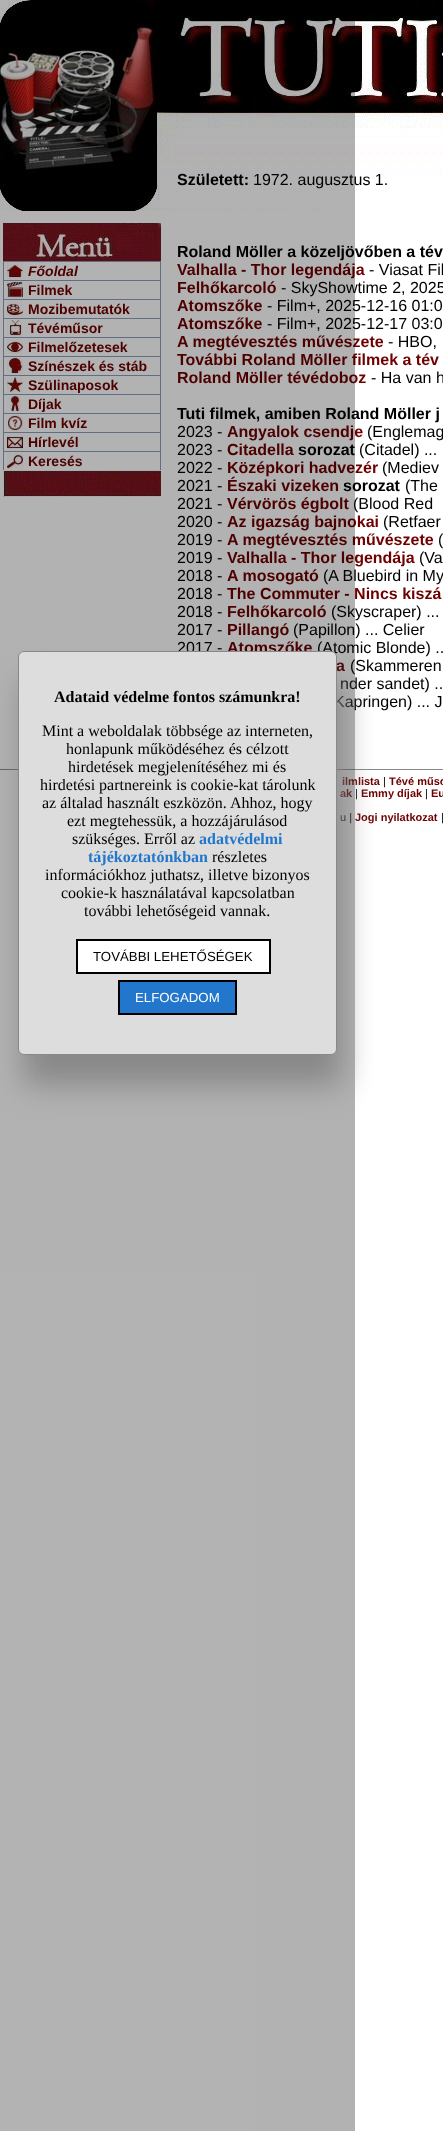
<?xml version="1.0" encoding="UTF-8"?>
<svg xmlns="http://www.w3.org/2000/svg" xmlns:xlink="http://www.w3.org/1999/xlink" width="443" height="2131">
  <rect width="100%" height="100%" fill="#ffffff" />
  <image x="0" y="0" width="443" height="211" xlink:href="image1.png" />
  <image x="3" y="223" width="158" height="38" xlink:href="image2.png" />
  <rect x="3" y="261" width="158" height="1" fill="#8c9cbe" />
  <rect x="160" y="261" width="1" height="19" fill="#8c9cbe" />
  <rect x="3" y="261" width="1" height="19" fill="#8c9cbe" />
  <image x="7" y="263" width="16" height="16" xlink:href="image3.png" />
  <rect x="3" y="280" width="158" height="1" fill="#8c9cbe" />
  <rect x="160" y="280" width="1" height="19" fill="#8c9cbe" />
  <rect x="3" y="280" width="1" height="19" fill="#8c9cbe" />
  <image x="7" y="282" width="16" height="16" xlink:href="image4.png" />
  <rect x="3" y="299" width="158" height="1" fill="#8c9cbe" />
  <rect x="160" y="299" width="1" height="19" fill="#8c9cbe" />
  <rect x="3" y="299" width="1" height="19" fill="#8c9cbe" />
  <image x="7" y="301" width="16" height="16" xlink:href="image5.png" />
  <rect x="3" y="318" width="158" height="1" fill="#8c9cbe" />
  <rect x="160" y="318" width="1" height="19" fill="#8c9cbe" />
  <rect x="3" y="318" width="1" height="19" fill="#8c9cbe" />
  <image x="7" y="320" width="16" height="16" xlink:href="image6.png" />
  <rect x="3" y="337" width="158" height="1" fill="#8c9cbe" />
  <rect x="160" y="337" width="1" height="19" fill="#8c9cbe" />
  <rect x="3" y="337" width="1" height="19" fill="#8c9cbe" />
  <image x="7" y="339" width="16" height="16" xlink:href="image7.png" />
  <rect x="3" y="356" width="158" height="1" fill="#8c9cbe" />
  <rect x="160" y="356" width="1" height="19" fill="#8c9cbe" />
  <rect x="3" y="356" width="1" height="19" fill="#8c9cbe" />
  <image x="7" y="358" width="16" height="16" xlink:href="image8.png" />
  <rect x="3" y="375" width="158" height="1" fill="#8c9cbe" />
  <rect x="160" y="375" width="1" height="19" fill="#8c9cbe" />
  <rect x="3" y="375" width="1" height="19" fill="#8c9cbe" />
  <image x="7" y="377" width="16" height="16" xlink:href="image9.png" />
  <rect x="3" y="394" width="158" height="1" fill="#8c9cbe" />
  <rect x="160" y="394" width="1" height="19" fill="#8c9cbe" />
  <rect x="3" y="394" width="1" height="19" fill="#8c9cbe" />
  <image x="7" y="396" width="14" height="16" xlink:href="image10.png" />
  <rect x="3" y="413" width="158" height="1" fill="#8c9cbe" />
  <rect x="160" y="413" width="1" height="19" fill="#8c9cbe" />
  <rect x="3" y="413" width="1" height="19" fill="#8c9cbe" />
  <image x="7" y="415" width="16" height="16" xlink:href="image11.png" />
  <rect x="3" y="432" width="158" height="1" fill="#8c9cbe" />
  <rect x="160" y="432" width="1" height="19" fill="#8c9cbe" />
  <rect x="3" y="432" width="1" height="19" fill="#8c9cbe" />
  <image x="7" y="434" width="16" height="16" xlink:href="image12.png" />
  <rect x="3" y="451" width="158" height="1" fill="#8c9cbe" />
  <rect x="160" y="451" width="1" height="19" fill="#8c9cbe" />
  <rect x="3" y="451" width="1" height="19" fill="#8c9cbe" />
  <image x="7" y="453" width="16" height="16" xlink:href="image13.png" />
  <image x="3" y="470" width="158" height="27" xlink:href="image14.png" />
  <rect y="769" width="443" height="1" fill="#888888" />
  <text x="28" y="276" style="font-family: Liberation Sans; font-size: 14px; font-weight: bold; font-style: italic; fill: #6f0000">Főoldal</text>
  <text x="28" y="295" style="font-family: Liberation Sans; font-size: 14px; font-weight: bold; fill: #6f0000">Filmek</text>
  <text x="28" y="314" style="font-family: Liberation Sans; font-size: 14px; font-weight: bold; fill: #6f0000">Mozibemutatók</text>
  <text x="28" y="333" style="font-family: Liberation Sans; font-size: 14px; font-weight: bold; fill: #6f0000">Tévéműsor</text>
  <text x="28" y="352" style="font-family: Liberation Sans; font-size: 14px; font-weight: bold; fill: #6f0000">Filmelőzetesek</text>
  <text x="28" y="371" style="font-family: Liberation Sans; font-size: 14px; font-weight: bold; fill: #6f0000">Színészek és stáb</text>
  <text x="28" y="390" style="font-family: Liberation Sans; font-size: 14px; font-weight: bold; fill: #6f0000">Szülinaposok</text>
  <text x="28" y="409" style="font-family: Liberation Sans; font-size: 14px; font-weight: bold; fill: #6f0000">Díjak</text>
  <text x="28" y="428" style="font-family: Liberation Sans; font-size: 14px; font-weight: bold; fill: #6f0000">Film kvíz</text>
  <text x="28" y="447" style="font-family: Liberation Sans; font-size: 14px; font-weight: bold; fill: #6f0000">Hírlevél</text>
  <text x="28" y="466" style="font-family: Liberation Sans; font-size: 14px; font-weight: bold; fill: #6f0000">Keresés</text>
  <text x="177" y="185" style="font-family: Liberation Sans; font-size: 16px; font-weight: bold; fill: #000000">Született:</text>
  <text x="253" y="185" style="font-family: Liberation Sans; font-size: 16px; fill: #000000">1972. augusztus 1.</text>
  <text x="177" y="257" style="font-family: Liberation Sans; font-size: 16px; font-weight: bold; fill: #000000">Roland Möller a közeljövőben a tév</text>
  <text x="177" y="275" style="font-family: Liberation Sans; font-size: 16px; font-weight: bold; fill: #6f0000">Valhalla - Thor legendája</text>
  <text x="369" y="275" style="font-family: Liberation Sans; font-size: 16px; fill: #000000">- Viasat Fil</text>
  <text x="177" y="293" style="font-family: Liberation Sans; font-size: 16px; font-weight: bold; fill: #6f0000">Felhőkarcoló</text>
  <text x="281" y="293" style="font-family: Liberation Sans; font-size: 16px; fill: #000000">- SkyShowtime 2, 2025</text>
  <text x="177" y="311" style="font-family: Liberation Sans; font-size: 16px; font-weight: bold; fill: #6f0000">Atomszőke</text>
  <text x="267" y="311" style="font-family: Liberation Sans; font-size: 16px; fill: #000000">- Film+, 2025-12-16 01:0</text>
  <text x="177" y="329" style="font-family: Liberation Sans; font-size: 16px; font-weight: bold; fill: #6f0000">Atomszőke</text>
  <text x="267" y="329" style="font-family: Liberation Sans; font-size: 16px; fill: #000000">- Film+, 2025-12-17 03:0</text>
  <text x="177" y="347" style="font-family: Liberation Sans; font-size: 16px; font-weight: bold; fill: #6f0000">A megtévesztés művészete</text>
  <text x="388" y="347" style="font-family: Liberation Sans; font-size: 16px; fill: #000000">- HBO,</text>
  <text x="177" y="365" style="font-family: Liberation Sans; font-size: 16px; font-weight: bold; fill: #6f0000">További Roland Möller filmek a tév</text>
  <text x="177" y="383" style="font-family: Liberation Sans; font-size: 16px; font-weight: bold; fill: #6f0000">Roland Möller tévédoboz</text>
  <text x="371" y="383" style="font-family: Liberation Sans; font-size: 16px; fill: #000000">- Ha van h</text>
  <text x="177" y="419" style="font-family: Liberation Sans; font-size: 16px; font-weight: bold; fill: #000000">Tuti filmek, amiben Roland Möller j</text>
  <text x="177" y="437" style="font-family: Liberation Sans; font-size: 16px; fill: #000000">2023 -</text>
  <text x="227" y="437" style="font-family: Liberation Sans; font-size: 16px; font-weight: bold; fill: #6f0000">Angyalok csendje</text>
  <text x="367" y="437" style="font-family: Liberation Sans; font-size: 16px; fill: #000000">(Englemag</text>
  <text x="177" y="455" style="font-family: Liberation Sans; font-size: 16px; fill: #000000">2023 -</text>
  <text x="227" y="455" style="font-family: Liberation Sans; font-size: 16px; font-weight: bold; fill: #6f0000">Citadella</text>
  <text x="298" y="455" style="font-family: Liberation Sans; font-size: 16px; font-weight: bold; fill: #000000">sorozat</text>
  <text x="359" y="455" style="font-family: Liberation Sans; font-size: 16px; fill: #000000">(Citadel) ...</text>
  <text x="177" y="473" style="font-family: Liberation Sans; font-size: 16px; fill: #000000">2022 -</text>
  <text x="227" y="473" style="font-family: Liberation Sans; font-size: 16px; font-weight: bold; fill: #6f0000">Középkori hadvezér</text>
  <text x="382" y="473" style="font-family: Liberation Sans; font-size: 16px; fill: #000000">(Mediev</text>
  <text x="177" y="491" style="font-family: Liberation Sans; font-size: 16px; fill: #000000">2021 -</text>
  <text x="227" y="491" style="font-family: Liberation Sans; font-size: 16px; font-weight: bold; fill: #6f0000">Északi vizeken</text>
  <text x="343" y="491" style="font-family: Liberation Sans; font-size: 16px; font-weight: bold; fill: #000000">sorozat</text>
  <text x="405" y="491" style="font-family: Liberation Sans; font-size: 16px; fill: #000000">(The</text>
  <text x="177" y="509" style="font-family: Liberation Sans; font-size: 16px; fill: #000000">2021 -</text>
  <text x="227" y="509" style="font-family: Liberation Sans; font-size: 16px; font-weight: bold; fill: #6f0000">Vérvörös égbolt</text>
  <text x="353" y="509" style="font-family: Liberation Sans; font-size: 16px; fill: #000000">(Blood Red</text>
  <text x="177" y="527" style="font-family: Liberation Sans; font-size: 16px; fill: #000000">2020 -</text>
  <text x="227" y="527" style="font-family: Liberation Sans; font-size: 16px; font-weight: bold; fill: #6f0000">Az igazság bajnokai</text>
  <text x="383" y="527" style="font-family: Liberation Sans; font-size: 16px; fill: #000000">(Retfaer</text>
  <text x="177" y="545" style="font-family: Liberation Sans; font-size: 16px; fill: #000000">2019 -</text>
  <text x="227" y="545" style="font-family: Liberation Sans; font-size: 16px; font-weight: bold; fill: #6f0000">A megtévesztés művészete</text>
  <text x="438" y="545" style="font-family: Liberation Sans; font-size: 16px; fill: #000000">(</text>
  <text x="177" y="563" style="font-family: Liberation Sans; font-size: 16px; fill: #000000">2019 -</text>
  <text x="227" y="563" style="font-family: Liberation Sans; font-size: 16px; font-weight: bold; fill: #6f0000">Valhalla - Thor legendája</text>
  <text x="419" y="563" style="font-family: Liberation Sans; font-size: 16px; fill: #000000">(Va</text>
  <text x="177" y="581" style="font-family: Liberation Sans; font-size: 16px; fill: #000000">2018 -</text>
  <text x="227" y="581" style="font-family: Liberation Sans; font-size: 16px; font-weight: bold; fill: #6f0000">A mosogató</text>
  <text x="323" y="581" style="font-family: Liberation Sans; font-size: 16px; fill: #000000">(A Bluebird in My</text>
  <text x="177" y="599" style="font-family: Liberation Sans; font-size: 16px; fill: #000000">2018 -</text>
  <text x="227" y="599" style="font-family: Liberation Sans; font-size: 16px; font-weight: bold; fill: #6f0000">The Commuter - Nincs kiszá</text>
  <text x="177" y="617" style="font-family: Liberation Sans; font-size: 16px; fill: #000000">2018 -</text>
  <text x="227" y="617" style="font-family: Liberation Sans; font-size: 16px; font-weight: bold; fill: #6f0000">Felhőkarcoló</text>
  <text x="331" y="617" style="font-family: Liberation Sans; font-size: 16px; fill: #000000">(Skyscraper) ...</text>
  <text x="177" y="635" style="font-family: Liberation Sans; font-size: 16px; fill: #000000">2017 -</text>
  <text x="227" y="635" style="font-family: Liberation Sans; font-size: 16px; font-weight: bold; fill: #6f0000">Pillangó</text>
  <text x="293" y="635" style="font-family: Liberation Sans; font-size: 16px; fill: #000000">(Papillon) ... Celier</text>
  <text x="177" y="653" style="font-family: Liberation Sans; font-size: 16px; fill: #000000">2017 -</text>
  <text x="227" y="653" style="font-family: Liberation Sans; font-size: 16px; font-weight: bold; fill: #6f0000">Atomszőke</text>
  <text x="317" y="653" style="font-family: Liberation Sans; font-size: 16px; fill: #000000">(Atomic Blonde) ..</text>
  <text x="336" y="671" style="font-family: Liberation Sans; font-size: 16px; font-weight: bold; fill: #6f0000">a</text>
  <text x="350" y="671" style="font-family: Liberation Sans; font-size: 16px; fill: #000000">(Skammeren</text>
  <text x="340" y="689" style="font-family: Liberation Sans; font-size: 16px; fill: #000000">nder sandet) ..</text>
  <text x="334" y="707" style="font-family: Liberation Sans; font-size: 16px; fill: #000000">Kapringen) ... J</text>
  <text x="342" y="785" style="font-family: Liberation Sans; font-size: 11px; font-weight: bold; fill: #6f0000">ilmlista</text>
  <text x="383" y="785" style="font-family: Liberation Sans; font-size: 11px; fill: #000000">|</text>
  <text x="389" y="785" style="font-family: Liberation Sans; font-size: 11px; font-weight: bold; fill: #6f0000">Tévé műso</text>
  <text x="340" y="797" style="font-family: Liberation Sans; font-size: 11px; font-weight: bold; fill: #6f0000">ak</text>
  <text x="355" y="797" style="font-family: Liberation Sans; font-size: 11px; fill: #000000">|</text>
  <text x="361" y="797" style="font-family: Liberation Sans; font-size: 11px; font-weight: bold; fill: #6f0000">Emmy díjak</text>
  <text x="425" y="797" style="font-family: Liberation Sans; font-size: 11px; fill: #000000">|</text>
  <text x="431" y="797" style="font-family: Liberation Sans; font-size: 11px; font-weight: bold; fill: #6f0000">Eu</text>
  <text x="340" y="821" style="font-family: Liberation Sans; font-size: 11px; fill: #000000">u |</text>
  <text x="355" y="821" style="font-family: Liberation Sans; font-size: 11px; font-weight: bold; fill: #6f0000">Jogi nyilatkozat</text>
  <text x="441" y="821" style="font-family: Liberation Sans; font-size: 11px; fill: #000000">|</text>
  <rect width="355" height="2131" fill="#000000" fill-opacity="0.3" />
  <rect x="23" y="681" width="319" height="404" rx="6" fill="#888888" filter="blur(15px)" />
  <rect x="18.5" y="651.5" width="318" height="403" rx="5.5" fill="#dddddd" stroke="#888888" />
  <text x="54" y="702" style="font-family: Liberation Serif; font-size: 16px; font-weight: bold; fill: #000000">Adataid védelme fontos számunkra!</text>
  <text x="42" y="736" style="font-family: Liberation Serif; font-size: 16px; fill: #000000">Mint a weboldalak többsége az interneten,</text>
  <text x="66" y="754" style="font-family: Liberation Serif; font-size: 16px; fill: #000000">honlapunk működéséhez és célzott</text>
  <text x="68" y="772" style="font-family: Liberation Serif; font-size: 16px; fill: #000000">hirdetések megjelenítéséhez mi és</text>
  <text x="40" y="790" style="font-family: Liberation Serif; font-size: 16px; fill: #000000">hirdetési partnereink is cookie-kat tárolunk</text>
  <text x="42" y="808" style="font-family: Liberation Serif; font-size: 16px; fill: #000000">az általad használt eszközön. Ahhoz, hogy</text>
  <text x="67" y="826" style="font-family: Liberation Serif; font-size: 16px; fill: #000000">ezt megtehessük, a hozzájárulásod</text>
  <text x="72" y="844" style="font-family: Liberation Serif; font-size: 16px; fill: #000000">szükséges. Erről az</text>
  <text x="199" y="844" style="font-family: Liberation Serif; font-size: 16px; font-weight: bold; fill: #2277cc">adatvédelmi</text>
  <text x="88" y="862" style="font-family: Liberation Serif; font-size: 16px; font-weight: bold; fill: #2277cc">tájékoztatónkban</text>
  <text x="212" y="862" style="font-family: Liberation Serif; font-size: 16px; fill: #000000">részletes</text>
  <text x="45" y="880" style="font-family: Liberation Serif; font-size: 16px; fill: #000000">információkhoz juthatsz, illetve bizonyos</text>
  <text x="61" y="898" style="font-family: Liberation Serif; font-size: 16px; fill: #000000">cookie-k használatával kapcsolatban</text>
  <text x="84" y="916" style="font-family: Liberation Serif; font-size: 16px; fill: #000000">további lehetőségeid vannak.</text>
  <rect x="77" y="940" width="193" height="33" fill="#ffffff" stroke="#000000" stroke-width="2" />
  <text x="93" y="961" style="font-family: Liberation Sans; font-size: 13.25px; fill: #000000">TOVÁBBI LEHETŐSÉGEK</text>
  <rect x="119" y="981" width="117" height="33" fill="#2277cc" stroke="#000000" stroke-width="2" />
  <text x="135" y="1002" style="font-family: Liberation Sans; font-size: 13.25px; fill: #ffffff">ELFOGADOM</text>
</svg>
